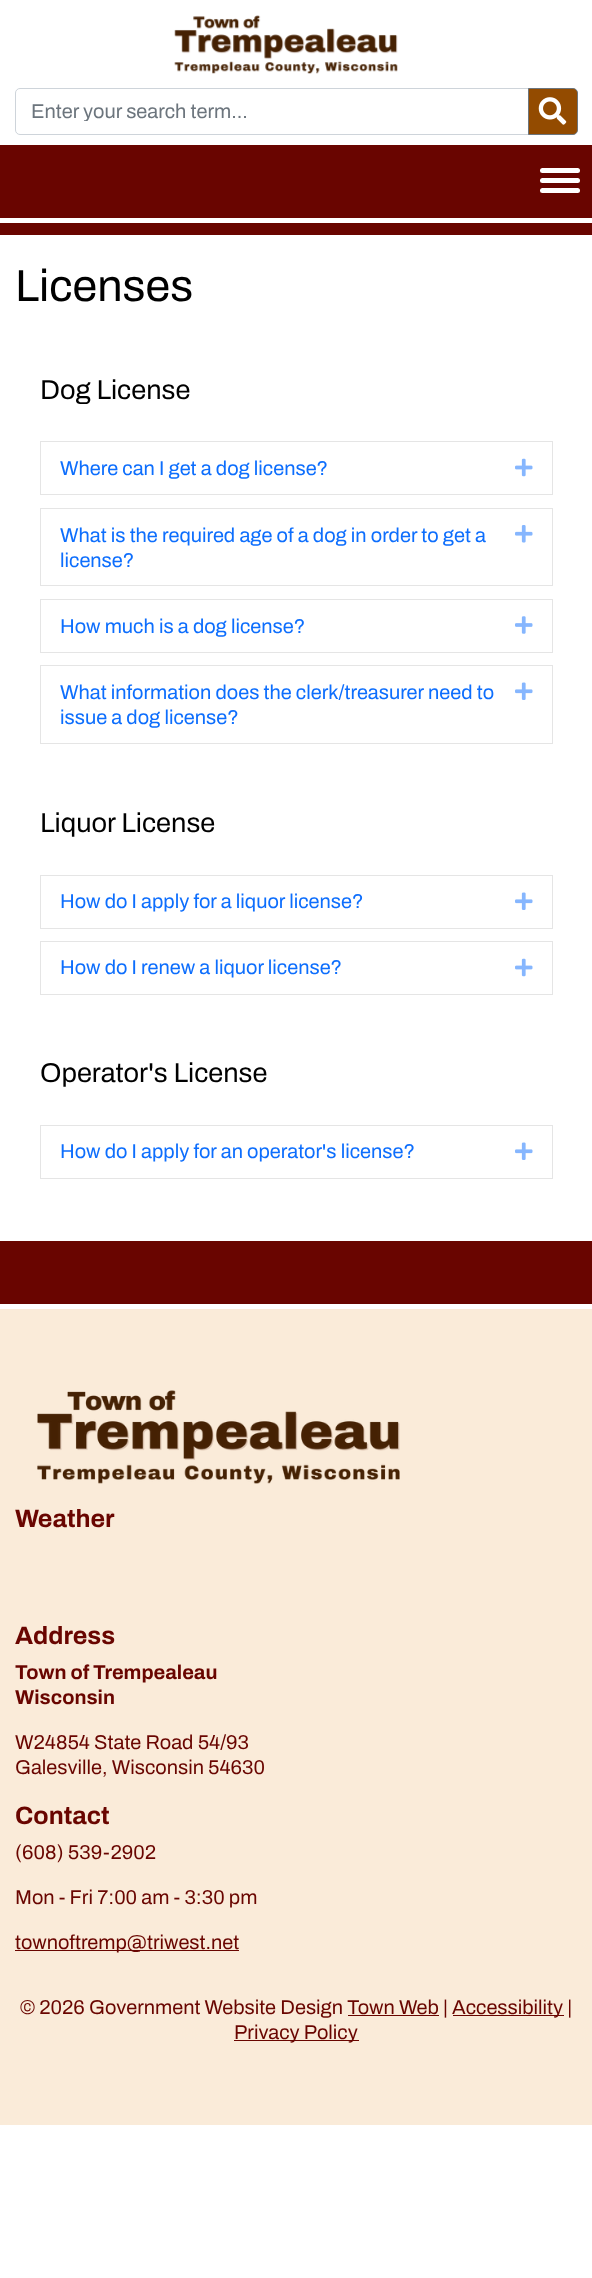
<?xml version="1.0" encoding="UTF-8"?>
<svg xmlns="http://www.w3.org/2000/svg" xmlns:xlink="http://www.w3.org/1999/xlink" width="592" height="2278">
  <defs>
    <clipPath id="clip1"><rect x="31" y="100" width="482" height="21" /></clipPath>
  </defs>
  <rect width="100%" height="100%" fill="#ffffff" />
  <rect y="145" width="592" height="90" fill="#690500" />
  <image x="174" y="15" width="224" height="59" xlink:href="image1.png" />
  <path d="M 20 88.5 h 508.5 v 46 h -508.5 c -2.5 0 -4.5 -2 -4.5 -4.5 v -37 c 0 -2.5 2 -4.5 4.5 -4.5 z" fill="none" stroke="#ced4da" />
  <path d="M 528.5 88.5 h 44.5 c 2.5 0 4.5 2 4.5 4.5 v 37 c 0 2.5 -2 4.5 -4.5 4.5 h -44.5 z" fill="#934b00" stroke="#6c757d" />
  <image x="538" y="97" width="29" height="28" xlink:href="image2.png" />
  <rect x="540" y="168" width="40" height="5" rx="2.5" fill="#ffffff" />
  <rect x="540" y="178" width="40" height="5" rx="2.5" fill="#ffffff" />
  <rect x="540" y="188" width="40" height="5" rx="2.5" fill="#ffffff" />
  <rect y="218" width="592" height="5" fill="#ffffff" />
  <rect x="40.5" y="441.5" width="512" height="53" fill="none" stroke="#e5e5e5" />
  <image x="515" y="458" width="18" height="19" xlink:href="image3.png" />
  <rect x="40.5" y="508.5" width="512" height="77" fill="none" stroke="#e5e5e5" />
  <image x="515" y="525" width="18" height="18" xlink:href="image4.png" />
  <rect x="40.5" y="599.5" width="512" height="53" fill="none" stroke="#e5e5e5" />
  <image x="515" y="616" width="18" height="18" xlink:href="image5.png" />
  <rect x="40.5" y="665.5" width="512" height="78" fill="none" stroke="#e5e5e5" />
  <image x="515" y="682" width="18" height="18" xlink:href="image6.png" />
  <rect x="40.5" y="875.5" width="512" height="53" fill="none" stroke="#e5e5e5" />
  <image x="515" y="892" width="18" height="18" xlink:href="image6.png" />
  <rect x="40.5" y="941.5" width="512" height="53" fill="none" stroke="#e5e5e5" />
  <image x="515" y="958" width="18" height="19" xlink:href="image3.png" />
  <rect x="40.5" y="1125.5" width="512" height="53" fill="none" stroke="#e5e5e5" />
  <image x="515" y="1142" width="18" height="18" xlink:href="image6.png" />
  <rect y="1309" width="592" height="816" fill="#faebd9" />
  <rect y="1241" width="592" height="63" fill="#690500" />
  <image x="37" y="1390" width="363" height="94" xlink:href="image7.png" />
  <rect x="15" y="1950" width="224" height="1" fill="#690500" />
  <rect x="453" y="2015" width="111" height="1" fill="#690500" />
  <rect x="348" y="2015" width="91" height="1" fill="#690500" />
  <rect x="234" y="2040" width="125" height="1" fill="#690500" />
  <g clip-path="url(#clip1)">
    <text x="31" y="118" style="font-family: Archivo; font-size: 20px; fill: #6c757d">Enter your search term...</text>
  </g>
  <text x="15" y="301" style="font-family: Archivo; font-size: 45px; fill: #000000">Licenses</text>
  <text x="40" y="399" style="font-family: Archivo; font-size: 27.25px; fill: #000000">Dog License</text>
  <text x="60" y="475" style="font-family: Archivo; font-size: 20px; fill: #0d6efd">Where can I get a dog license?</text>
  <text x="60" y="542" style="font-family: Archivo; font-size: 20px; fill: #0d6efd">What is the required age of a dog in order to get a</text>
  <text x="60" y="567" style="font-family: Archivo; font-size: 20px; fill: #0d6efd">license?</text>
  <text x="60" y="633" style="font-family: Archivo; font-size: 20px; fill: #0d6efd">How much is a dog license?</text>
  <text x="60" y="699" style="font-family: Archivo; font-size: 20px; fill: #0d6efd">What information does the clerk/treasurer need to</text>
  <text x="60" y="724" style="font-family: Archivo; font-size: 20px; fill: #0d6efd">issue a dog license?</text>
  <text x="40" y="832" style="font-family: Archivo; font-size: 27.25px; fill: #000000">Liquor License</text>
  <text x="60" y="908" style="font-family: Archivo; font-size: 20px; fill: #0d6efd">How do I apply for a liquor license?</text>
  <text x="60" y="974" style="font-family: Archivo; font-size: 20px; fill: #0d6efd">How do I renew a liquor license?</text>
  <text x="40" y="1082" style="font-family: Archivo; font-size: 27.25px; fill: #000000">Operator's License</text>
  <text x="60" y="1158" style="font-family: Archivo; font-size: 20px; fill: #0d6efd">How do I apply for an operator's license?</text>
  <text x="15" y="1527" style="font-family: Archivo; font-size: 25px; font-weight: bold; fill: #690500">Weather</text>
  <text x="15" y="1644" style="font-family: Archivo; font-size: 25px; font-weight: bold; fill: #690500">Address</text>
  <text x="15" y="1679" style="font-family: Archivo; font-size: 20px; font-weight: bold; fill: #690500">Town of Trempealeau</text>
  <text x="15" y="1704" style="font-family: Archivo; font-size: 20px; font-weight: bold; fill: #690500">Wisconsin</text>
  <text x="15" y="1749" style="font-family: Archivo; font-size: 20px; fill: #690500">W24854 State Road 54/93</text>
  <text x="15" y="1774" style="font-family: Archivo; font-size: 20px; fill: #690500">Galesville, Wisconsin 54630</text>
  <text x="15" y="1824" style="font-family: Archivo; font-size: 25px; font-weight: bold; fill: #690500">Contact</text>
  <text x="15" y="1859" style="font-family: Archivo; font-size: 20px; fill: #690500">(608) 539-2902</text>
  <text x="15" y="1904" style="font-family: Archivo; font-size: 20px; fill: #690500">Mon - Fri 7:00 am - 3:30 pm</text>
  <text x="15" y="1949" style="font-family: Archivo; font-size: 20px; fill: #690500">townoftremp@triwest.net</text>
  <text x="20" y="2014" style="font-family: Archivo; font-size: 20px; fill: #690500">© 2026 Government Website Design Town Web |</text>
  <text x="452" y="2014" style="font-family: Archivo; font-size: 20px; fill: #690500">Accessibility |</text>
  <text x="234" y="2039" style="font-family: Archivo; font-size: 20px; fill: #690500">Privacy Policy</text>
</svg>
